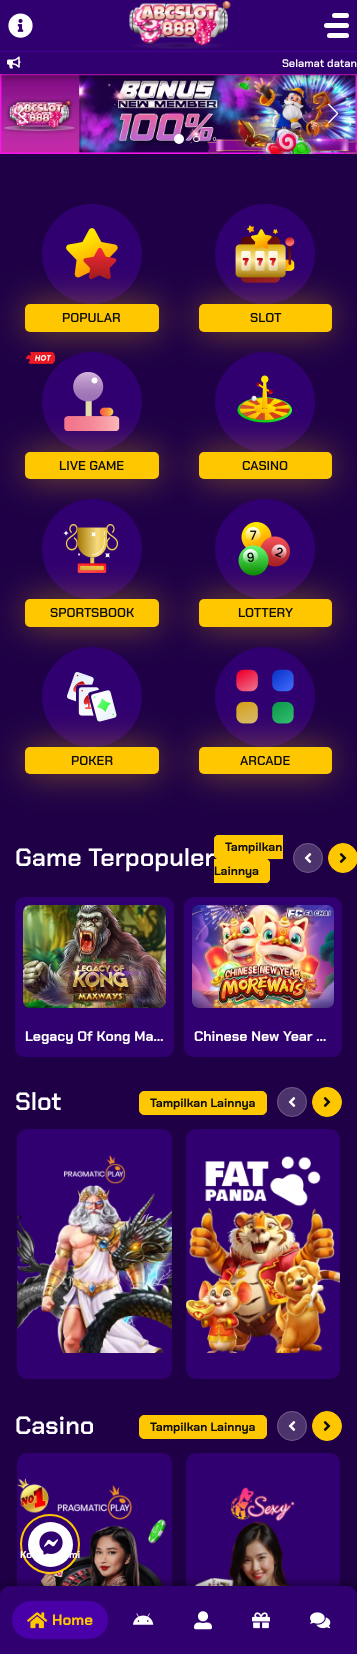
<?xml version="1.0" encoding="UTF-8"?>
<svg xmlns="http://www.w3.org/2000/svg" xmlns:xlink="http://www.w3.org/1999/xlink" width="357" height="1654">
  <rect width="100%" height="100%" fill="#1f0047" />
  <image x="0" y="74" width="357" height="80" xlink:href="image4.png" />
  <rect x="-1" y="1" width="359" height="76" fill="#000000" fill-opacity="0.4" filter="blur(4.5px)" />
  <rect width="357" height="74" fill="#310070" />
  <rect y="51" width="357" height="1" fill="#410096" />
  <image x="8" y="13" width="25" height="25" xlink:href="image1.png" />
  <image x="129" y="1" width="102" height="48" xlink:href="image2.png" />
  <rect x="324" y="23" width="25" height="5" rx="2.5" fill="#ffffff" />
  <rect x="332" y="13" width="17" height="5" rx="2.5" fill="#ffffff" />
  <rect x="327" y="33" width="22" height="5" rx="2.5" fill="#ffffff" />
  <image x="7" y="56" width="14" height="13" xlink:href="image3.png" />
  <image x="18" y="103" width="11" height="21" xlink:href="image5.png" />
  <image x="328" y="103" width="11" height="21" xlink:href="image6.png" />
  <circle cx="179" cy="139" r="4" fill="#ffffff" stroke="#ffffff" stroke-width="2" />
  <rect x="193.5" y="136.5" width="6" height="5" rx="2.5" fill="none" stroke="#ffffff" />
  <rect x="213.35" y="137.35" width="2.3" height="3.3" rx="1.15" fill="none" stroke="#ffffff" stroke-width="0.7" />
  <circle cx="92" cy="254" r="50" fill="#310070" />
  <rect x="25" y="304" width="134" height="28" rx="5" fill="#ffc700" fill-opacity="0.4" filter="blur(17.5px)" />
  <image x="66" y="228" width="52" height="52" xlink:href="image7.png" />
  <rect x="25" y="304" width="134" height="28" rx="5" fill="#ffc700" />
  <circle cx="265" cy="254" r="50" fill="#310070" />
  <rect x="199" y="304" width="133" height="28" rx="5" fill="#ffc700" fill-opacity="0.4" filter="blur(17.5px)" />
  <image x="235" y="225" width="60" height="58" xlink:href="image8.png" />
  <rect x="199" y="304" width="133" height="28" rx="5" fill="#ffc700" />
  <circle cx="92" cy="402" r="50" fill="#310070" />
  <image x="25" y="352" width="30" height="12" xlink:href="image9.png" />
  <rect x="25" y="452" width="134" height="27" rx="5" fill="#ffc700" fill-opacity="0.4" filter="blur(17.5px)" />
  <image x="64" y="372" width="56" height="59" xlink:href="image10.png" />
  <rect x="25" y="452" width="134" height="27" rx="5" fill="#ffc700" />
  <circle cx="265" cy="402" r="50" fill="#310070" />
  <rect x="199" y="452" width="133" height="27" rx="5" fill="#ffc700" fill-opacity="0.4" filter="blur(17.5px)" />
  <image x="237" y="375" width="55" height="48" xlink:href="image11.png" />
  <rect x="199" y="452" width="133" height="27" rx="5" fill="#ffc700" />
  <circle cx="92" cy="549" r="50" fill="#310070" />
  <rect x="25" y="599" width="134" height="28" rx="5" fill="#ffc700" fill-opacity="0.4" filter="blur(17.5px)" />
  <image x="63" y="524" width="56" height="49" xlink:href="image12.png" />
  <rect x="25" y="599" width="134" height="28" rx="5" fill="#ffc700" />
  <circle cx="265" cy="549" r="50" fill="#310070" />
  <rect x="199" y="599" width="133" height="28" rx="5" fill="#ffc700" fill-opacity="0.4" filter="blur(17.5px)" />
  <image x="238" y="522" width="52" height="54" xlink:href="image13.png" />
  <rect x="199" y="599" width="133" height="28" rx="5" fill="#ffc700" />
  <circle cx="92" cy="697" r="50" fill="#310070" />
  <rect x="25" y="747" width="134" height="27" rx="5" fill="#ffc700" fill-opacity="0.4" filter="blur(17.5px)" />
  <image x="67" y="672" width="50" height="50" xlink:href="image14.png" />
  <rect x="25" y="747" width="134" height="27" rx="5" fill="#ffc700" />
  <circle cx="265" cy="697" r="50" fill="#310070" />
  <rect x="199" y="747" width="133" height="27" rx="5" fill="#ffc700" fill-opacity="0.4" filter="blur(17.5px)" />
  <image x="236" y="669" width="58" height="55" xlink:href="image15.png" />
  <rect x="199" y="747" width="133" height="27" rx="5" fill="#ffc700" />
  <circle cx="308" cy="858" r="15" fill="#4c336c" />
  <circle cx="308" cy="858" r="14.5" fill="none" stroke="#ffffff" stroke-opacity="0.2" />
  <image x="304" y="853" width="8" height="10" xlink:href="image16.png" />
  <circle cx="343" cy="858" r="14.5" fill="#ffc700" stroke="#ffc700" />
  <image x="339" y="853" width="8" height="10" xlink:href="image17.png" />
  <path d="M 25 897 h 139 c 5.5 0 10 4.5 10 10 v 109 h -159 v -109 c 0 -5.5 4.5 -10 10 -10 z" fill="#310070" />
  <image x="23" y="905" width="143" height="103" xlink:href="image18.png" />
  <path d="M 15 1016 h 159 v 31 c 0 5.5 -4.5 10 -10 10 h -139 c -5.5 0 -10 -4.5 -10 -10 z" fill="#310070" />
  <path d="M 194 897 h 138 c 5.5 0 10 4.5 10 10 v 109 h -158 v -109 c 0 -5.5 4.5 -10 10 -10 z" fill="#310070" />
  <image x="192" y="905" width="142" height="103" xlink:href="image19.png" />
  <path d="M 184 1016 h 158 v 31 c 0 5.5 -4.5 10 -10 10 h -138 c -5.5 0 -10 -4.5 -10 -10 z" fill="#310070" />
  <rect x="139.5" y="1091.5" width="127" height="23" rx="4.5" fill="#ffc700" stroke="#ffc700" />
  <circle cx="292" cy="1102" r="15" fill="#4c336c" />
  <circle cx="292" cy="1102" r="14.5" fill="none" stroke="#ffffff" stroke-opacity="0.2" />
  <image x="288" y="1097" width="8" height="10" xlink:href="image16.png" />
  <circle cx="327" cy="1102" r="14.5" fill="#ffc700" stroke="#ffc700" />
  <image x="323" y="1097" width="8" height="10" xlink:href="image17.png" />
  <rect x="17" y="1129" width="155" height="250" rx="10" fill="#310070" />
  <image x="17" y="1155" width="155" height="198" xlink:href="image20.png" />
  <rect x="186" y="1129" width="154" height="250" rx="10" fill="#310070" />
  <image x="186" y="1156" width="154" height="197" xlink:href="image21.png" />
  <rect x="139.5" y="1415.5" width="127" height="23" rx="4.5" fill="#ffc700" stroke="#ffc700" />
  <circle cx="292" cy="1426" r="15" fill="#4c336c" />
  <circle cx="292" cy="1426" r="14.5" fill="none" stroke="#ffffff" stroke-opacity="0.2" />
  <image x="288" y="1421" width="8" height="10" xlink:href="image16.png" />
  <circle cx="327" cy="1426" r="14.5" fill="#ffc700" stroke="#ffc700" />
  <image x="323" y="1421" width="8" height="10" xlink:href="image17.png" />
  <rect x="17" y="1453" width="155" height="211" rx="10" fill="#310070" />
  <image x="17" y="1478" width="149" height="108" xlink:href="image22.png" />
  <rect x="186" y="1453" width="154" height="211" rx="10" fill="#310070" />
  <image x="194" y="1487" width="101" height="99" xlink:href="image23.png" />
  <rect x="-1" y="1583" width="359" height="70" rx="11" fill="#000000" fill-opacity="0.4" filter="blur(4.5px)" />
  <circle cx="50" cy="1544" r="29" fill="#310070" stroke="#ffc700" stroke-width="2" />
  <circle cx="50.5" cy="1544.5" r="22.5" fill="#ffffff" />
  <image x="39" y="1531" width="24" height="24" xlink:href="image24.png" />
  <path d="M 10 1586 h 337 c 5.5 0 10 4.5 10 10 v 58 h -357 v -58 c 0 -5.5 4.5 -10 10 -10 z" fill="#310070" />
  <rect x="12" y="1601" width="96" height="38" rx="19" fill="#4900a8" />
  <image x="27" y="1612" width="21" height="17" xlink:href="image25.png" />
  <image x="133" y="1613" width="21" height="12" xlink:href="image26.png" />
  <image x="194" y="1611" width="18" height="19" xlink:href="image27.png" />
  <image x="252" y="1612" width="18" height="17" xlink:href="image28.png" />
  <image x="310" y="1612" width="21" height="17" xlink:href="image29.png" />
  <text x="282" y="67" style="font-family: Chakra Petch; font-size: 11px; font-weight: 600; fill: #ffffff">Selamat datan</text>
  <text x="62" y="322" style="font-family: Chakra Petch; font-size: 13px; font-weight: 600; fill: #0c0c0c">POPULAR</text>
  <text x="250" y="322" style="font-family: Chakra Petch; font-size: 13px; font-weight: 600; fill: #0c0c0c">SLOT</text>
  <text x="59" y="470" style="font-family: Chakra Petch; font-size: 13px; font-weight: 600; fill: #0c0c0c">LIVE GAME</text>
  <text x="242" y="470" style="font-family: Chakra Petch; font-size: 13px; font-weight: 600; fill: #0c0c0c">CASINO</text>
  <text x="50" y="617" style="font-family: Chakra Petch; font-size: 13px; font-weight: 600; fill: #0c0c0c">SPORTSBOOK</text>
  <text x="238" y="617" style="font-family: Chakra Petch; font-size: 13px; font-weight: 600; fill: #0c0c0c">LOTTERY</text>
  <text x="71" y="765" style="font-family: Chakra Petch; font-size: 13px; font-weight: 600; fill: #0c0c0c">POKER</text>
  <text x="240" y="765" style="font-family: Chakra Petch; font-size: 13px; font-weight: 600; fill: #0c0c0c">ARCADE</text>
  <text x="15" y="866" style="font-family: Chakra Petch; font-size: 25px; font-weight: 600; fill: #ffffff">Game Terpopuler</text>
  <path d="M 219 835 h 64 v 24 h -64 c -3 0 -5 -2 -5 -5 v -14 c 0 -3 2 -5 5 -5 z" fill="#ffc700" />
  <path d="M 219 835 h 64 v 24 h -64 c -3 0 -5 -2 -5 -5 v -14 c 0 -3 2 -5 5 -5 z m 0 1 h 64 v 22 h -64 c -2 0 -4 -2 -4 -4 v -14 c 0 -2 2 -4 4 -4 z" fill="#ffc700" fill-rule="evenodd" />
  <text x="225" y="851" style="font-family: Chakra Petch; font-size: 12px; font-weight: bold; fill: #0c0c0c">Tampilkan</text>
  <path d="M 214 859 h 51 c 3 0 5 2 5 5 v 14 c 0 3 -2 5 -5 5 h -51 z" fill="#ffc700" />
  <path d="M 214 859 h 51 c 3 0 5 2 5 5 v 14 c 0 3 -2 5 -5 5 h -51 z m 0 1 h 51 c 2 0 4 2 4 4 v 14 c 0 2 -2 4 -4 4 h -51 z" fill="#ffc700" fill-rule="evenodd" />
  <text x="214" y="875" style="font-family: Chakra Petch; font-size: 12px; font-weight: bold; fill: #0c0c0c">Lainnya</text>
  <text x="25" y="1041" style="font-family: Chakra Petch; font-size: 14px; font-weight: bold; fill: #ffffff">Legacy Of Kong Ma…</text>
  <text x="194" y="1041" style="font-family: Chakra Petch; font-size: 14px; font-weight: bold; fill: #ffffff">Chinese New Year …</text>
  <text x="15" y="1110" style="font-family: Chakra Petch; font-size: 25px; font-weight: 600; fill: #ffffff">Slot</text>
  <text x="150" y="1107" style="font-family: Chakra Petch; font-size: 12px; font-weight: bold; fill: #0c0c0c">Tampilkan Lainnya</text>
  <text x="15" y="1434" style="font-family: Chakra Petch; font-size: 25px; font-weight: 600; fill: #ffffff">Casino</text>
  <text x="150" y="1431" style="font-family: Chakra Petch; font-size: 12px; font-weight: bold; fill: #0c0c0c">Tampilkan Lainnya</text>
  <text x="20" y="1558" style="font-family: Chakra Petch; font-size: 10px; font-weight: bold; fill: #ffffff">Ko</text>
  <text x="69" y="1558" style="font-family: Chakra Petch; font-size: 10px; font-weight: bold; fill: #ffffff">mi</text>
  <text x="52" y="1625" style="font-family: Chakra Petch; font-size: 15px; font-weight: bold; fill: #ffc700">Home</text>
</svg>
